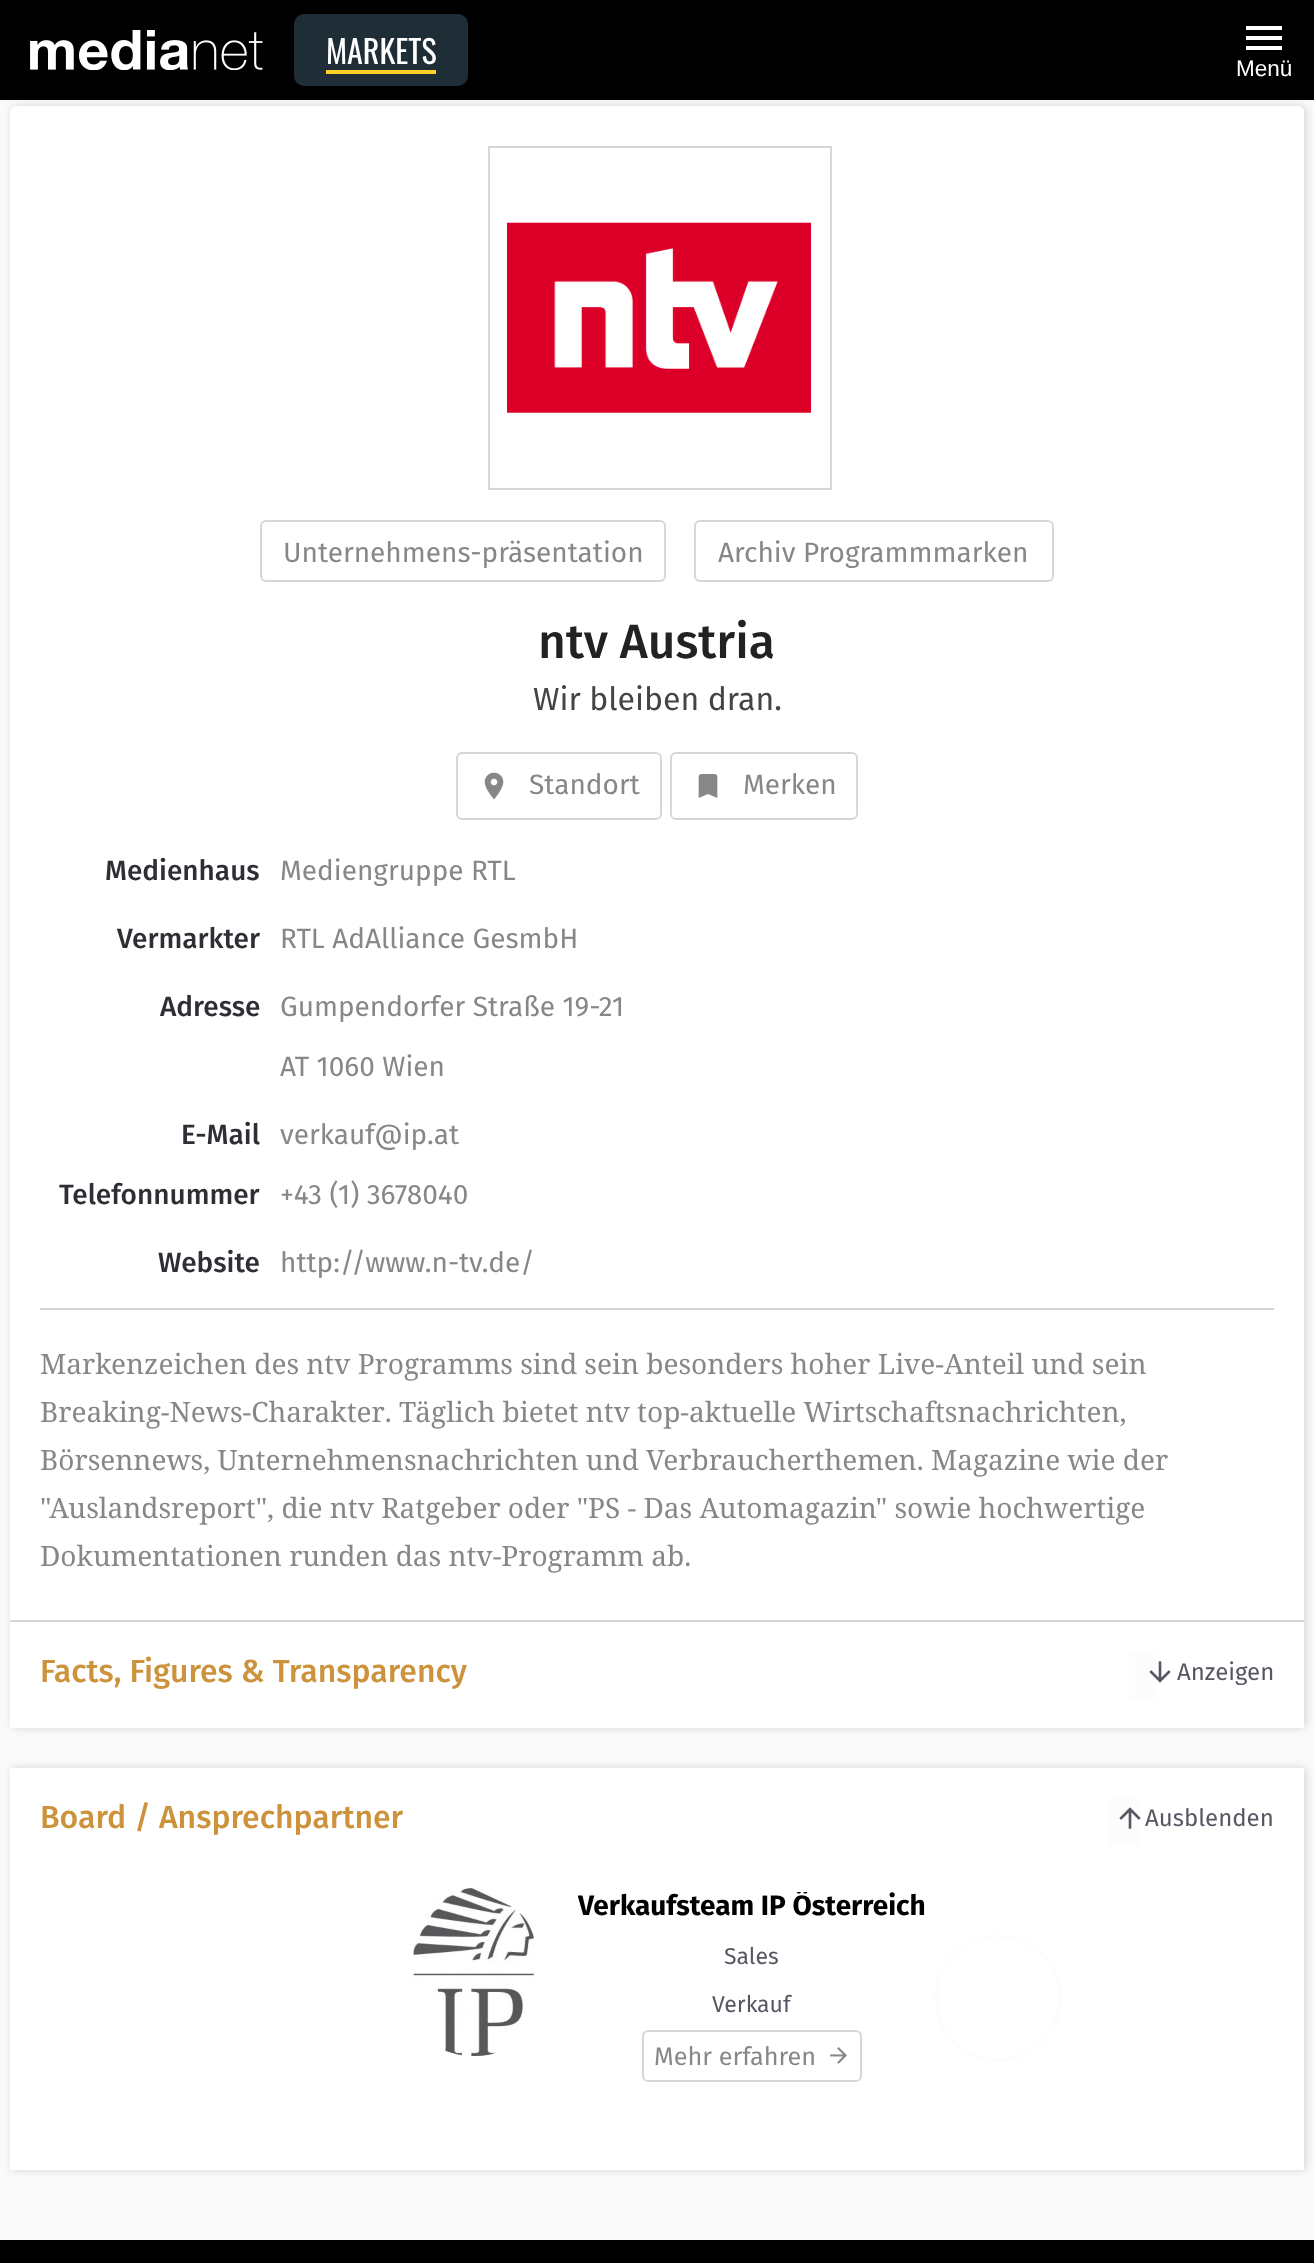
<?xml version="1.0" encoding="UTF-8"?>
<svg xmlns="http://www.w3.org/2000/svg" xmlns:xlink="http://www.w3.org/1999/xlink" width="1314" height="2263">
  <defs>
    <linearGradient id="g1" gradientUnits="userSpaceOnUse" x1="1064" y1="1676" x2="1274" y2="1676"><stop offset="0" stop-color="#ffffff" /><stop offset="0.37" stop-color="#fcfcfc" /><stop offset="0.77" stop-color="#ffffff" /><stop offset="1" stop-color="#ffffff" /></linearGradient>
    <linearGradient id="g2" gradientUnits="userSpaceOnUse" x1="1034" y1="1822" x2="1274" y2="1822"><stop offset="0" stop-color="#ffffff" /><stop offset="0.37" stop-color="#fcfcfc" /><stop offset="0.77" stop-color="#ffffff" /><stop offset="1" stop-color="#ffffff" /></linearGradient>
    <clipPath id="clip1"><rect x="578" y="1892" width="348" height="30" /></clipPath>
  </defs>
  <rect width="100%" height="100%" fill="#fafafa" />
  <rect x="12" y="106" width="1294" height="1622" rx="6" fill="#000000" fill-opacity="0.15" filter="blur(4px)" />
  <rect width="1314" height="100" fill="#000000" />
  <image x="30" y="30" width="233" height="40" xlink:href="image1.png" />
  <rect x="294" y="14" width="174" height="72" rx="10" fill="#1f2d37" />
  <rect x="326" y="70" width="110" height="4" fill="#ffd125" />
  <path d="M 1246 50 v -4 h 36 v 4 z m 0 -10 v -4 h 36 v 4 z m 0 -10 v -4 h 36 v 4 z" fill="#ffffff" />
  <rect x="10" y="106" width="1294" height="1622" rx="6" fill="#ffffff" />
  <rect x="489" y="147" width="342" height="342" fill="none" stroke="#d7d7d7" stroke-width="2" />
  <image x="507" y="222" width="305" height="191" xlink:href="image2.png" />
  <rect x="261" y="521" width="404" height="60" rx="5" fill="none" stroke="#d7d7d7" stroke-width="2" />
  <rect x="695" y="521" width="358" height="60" rx="5" fill="none" stroke="#d7d7d7" stroke-width="2" />
  <rect x="457" y="753" width="204" height="66" rx="5" fill="none" stroke="#d7d7d7" stroke-width="2" />
  <image x="484" y="772" width="20" height="28" xlink:href="image3.png" />
  <rect x="671" y="753" width="186" height="66" rx="5" fill="none" stroke="#d7d7d7" stroke-width="2" />
  <image x="698" y="774" width="20" height="24" xlink:href="image4.png" />
  <rect x="40" y="1308" width="1234" height="2" fill="#d7d7d7" />
  <rect x="10" y="1723" width="1294" height="5" fill="#ffffff" />
  <rect x="10" y="1620" width="1294" height="2" fill="#d7d7d7" />
  <rect x="1129" y="1652" width="27" height="48" fill="url(#g1)" />
  <image x="1149" y="1661" width="22" height="22" xlink:href="image5.png" />
  <rect x="12" y="1768" width="1294" height="402" fill="#000000" fill-opacity="0.15" filter="blur(4px)" />
  <rect x="10" y="1768" width="1294" height="402" fill="#ffffff" />
  <rect x="1108" y="1798" width="31" height="48" fill="url(#g2)" />
  <image x="1119" y="1807" width="22" height="22" xlink:href="image6.png" />
  <image x="412" y="1888" width="122" height="168" xlink:href="image7.png" />
  <rect x="643" y="2031" width="218" height="50" rx="5" fill="none" stroke="#d7d7d7" stroke-width="2" />
  <image x="830" y="2047" width="17" height="17" xlink:href="image8.png" />
  <circle cx="998" cy="1998" r="62" fill="none" stroke="#fefdfb" stroke-width="4" />
  <rect y="2240" width="1314" height="23" fill="#000000" />
  <text x="326" y="64" style="font-family: Oswald; font-size: 32px; fill: #ffffff">MARKETS</text>
  <text x="1236" y="76" style="font-family: Liberation Sans; font-size: 22.5px; fill: #ffffff">Menü</text>
  <text x="283" y="562" style="font-family: Fira Sans; font-size: 28px; fill: #878787">Unternehmens-präsentation</text>
  <text x="718" y="562" style="font-family: Fira Sans; font-size: 28px; fill: #878787">Archiv Programmmarken</text>
  <text x="538" y="658" style="font-family: Fira Sans; font-size: 48px; font-weight: 500; fill: #222222">ntv Austria</text>
  <text x="533" y="710" style="font-family: Fira Sans; font-size: 32px; fill: #444444">Wir bleiben dran.</text>
  <text x="529" y="794" style="font-family: Fira Sans; font-size: 28px; fill: #878787">Standort</text>
  <text x="743" y="794" style="font-family: Fira Sans; font-size: 28px; fill: #878787">Merken</text>
  <text x="105" y="880" style="font-family: Fira Sans; font-size: 28px; font-weight: 500; fill: #2e2e35">Medienhaus</text>
  <text x="280" y="880" style="font-family: Fira Sans; font-size: 28px; fill: #878787">Mediengruppe RTL</text>
  <text x="117" y="948" style="font-family: Fira Sans; font-size: 28px; font-weight: 500; fill: #2e2e35">Vermarkter</text>
  <text x="280" y="948" style="font-family: Fira Sans; font-size: 28px; fill: #878787">RTL AdAlliance GesmbH</text>
  <text x="160" y="1016" style="font-family: Fira Sans; font-size: 28px; font-weight: 500; fill: #2e2e35">Adresse</text>
  <text x="280" y="1016" style="font-family: Fira Sans; font-size: 28px; fill: #878787">Gumpendorfer Straße 19-21</text>
  <text x="280" y="1076" style="font-family: Fira Sans; font-size: 28px; fill: #878787">AT 1060 Wien</text>
  <text x="181" y="1144" style="font-family: Fira Sans; font-size: 28px; font-weight: 500; fill: #2e2e35">E-Mail</text>
  <text x="280" y="1144" style="font-family: Fira Sans; font-size: 28px; fill: #878787">verkauf@ip.at</text>
  <text x="59" y="1204" style="font-family: Fira Sans; font-size: 28px; font-weight: 500; fill: #2e2e35">Telefonnummer</text>
  <text x="280" y="1204" style="font-family: Fira Sans; font-size: 28px; fill: #878787">+43 (1) 3678040</text>
  <text x="158" y="1272" style="font-family: Fira Sans; font-size: 28px; font-weight: 500; fill: #2e2e35">Website</text>
  <text x="280" y="1272" style="font-family: Fira Sans; font-size: 28px; fill: #878787">http://www.n-tv.de/</text>
  <text x="40" y="1374" style="font-family: Noto Serif; font-size: 28px; fill: #878787">Markenzeichen des ntv Programms sind sein besonders hoher Live-Anteil und sein</text>
  <text x="40" y="1422" style="font-family: Noto Serif; font-size: 28px; fill: #878787">Breaking-News-Charakter. Täglich bietet ntv top-aktuelle Wirtschaftsnachrichten,</text>
  <text x="40" y="1470" style="font-family: Noto Serif; font-size: 28px; fill: #878787">Börsennews, Unternehmensnachrichten und Verbraucherthemen. Magazine wie der</text>
  <text x="40" y="1518" style="font-family: Noto Serif; font-size: 28px; fill: #878787">"Auslandsreport", die ntv Ratgeber oder "PS - Das Automagazin" sowie hochwertige</text>
  <text x="40" y="1566" style="font-family: Noto Serif; font-size: 28px; fill: #878787">Dokumentationen runden das ntv-Programm ab.</text>
  <text x="40" y="1682" style="font-family: Fira Sans; font-size: 32px; font-weight: 500; fill: #cc933c">Facts, Figures &amp; Transparency</text>
  <text x="1177" y="1680" style="font-family: Fira Sans; font-size: 24px; fill: #575764">Anzeigen</text>
  <text x="40" y="1828" style="font-family: Fira Sans; font-size: 32px; font-weight: 500; fill: #cc933c">Board / Ansprechpartner</text>
  <text x="1145" y="1826" style="font-family: Fira Sans; font-size: 24px; fill: #575764">Ausblenden</text>
  <g clip-path="url(#clip1)">
    <text x="578" y="1915" style="font-family: Fira Sans; font-size: 28px; font-weight: bold; fill: #000000">Verkaufsteam IP Österreich</text>
  </g>
  <text x="724" y="1964" style="font-family: Fira Sans; font-size: 23px; fill: #575764">Sales</text>
  <text x="712" y="2012" style="font-family: Fira Sans; font-size: 23px; fill: #575764">Verkauf</text>
  <text x="654" y="2065" style="font-family: Fira Sans; font-size: 25.25px; fill: #878787">Mehr erfahren</text>
</svg>
